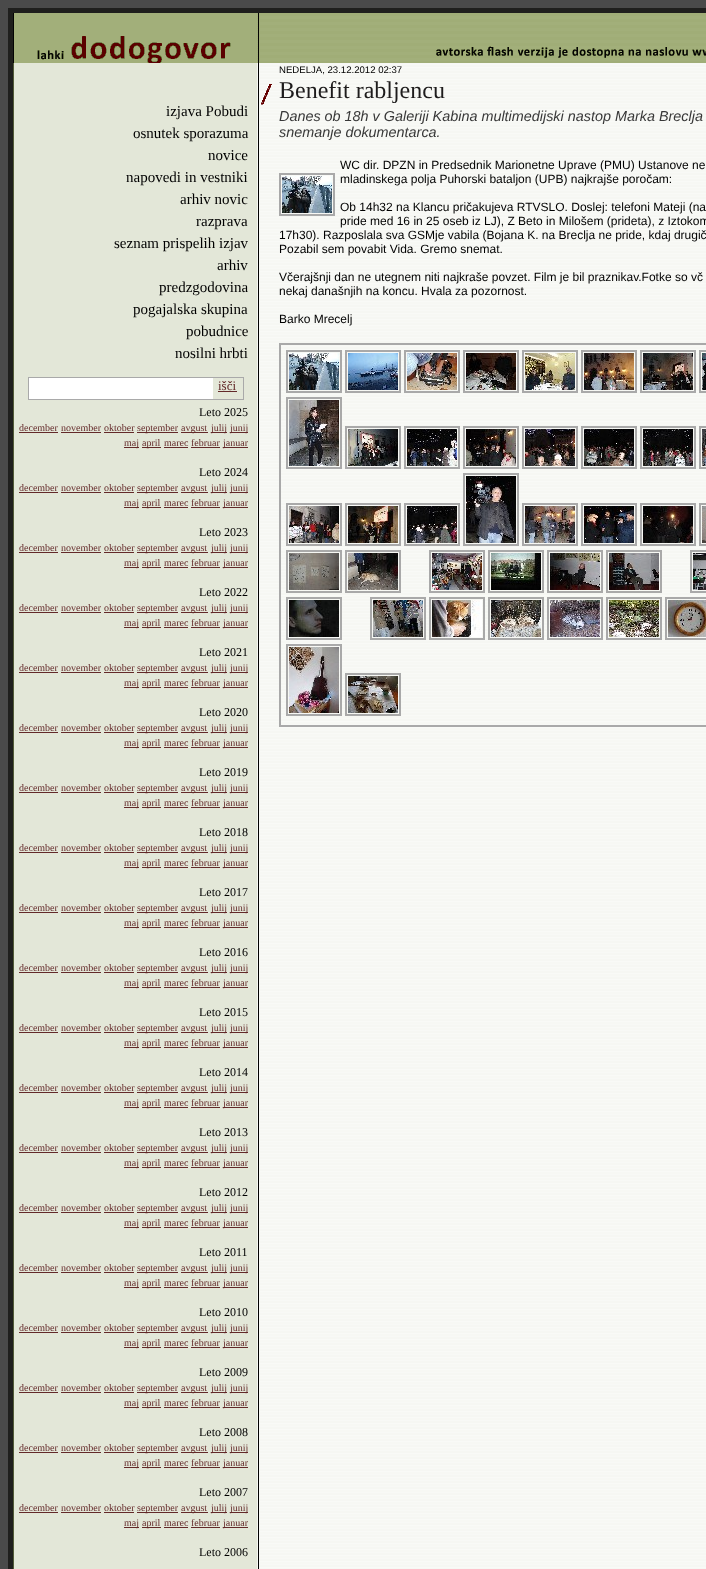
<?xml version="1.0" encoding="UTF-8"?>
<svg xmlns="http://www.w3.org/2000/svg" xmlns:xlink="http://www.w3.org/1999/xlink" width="706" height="1569">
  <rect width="100%" height="100%" fill="#4a4a4a" />
  <image x="13" y="63" width="693" height="1506" xlink:href="image1.png" />
  <rect x="10.5" y="10.5" width="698" height="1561" fill="none" stroke="#1f1f1d" stroke-width="5" />
  <image x="13" y="13" width="693" height="50" xlink:href="image2.png" />
  <rect x="29" y="378" width="184" height="21" fill="#ffffff" />
  <rect x="28" y="377" width="216" height="1" fill="#a9a9a9" />
  <rect x="243" y="377" width="1" height="23" fill="#a9a9a9" />
  <rect x="28" y="399" width="216" height="1" fill="#a9a9a9" />
  <rect x="28" y="377" width="1" height="23" fill="#a9a9a9" />
  <rect x="218" y="391" width="19" height="1" fill="#632929" />
  <rect x="19" y="432" width="39" height="1" fill="#632929" />
  <rect x="61" y="432" width="40" height="1" fill="#632929" />
  <rect x="104" y="432" width="30" height="1" fill="#632929" />
  <rect x="137" y="432" width="41" height="1" fill="#632929" />
  <rect x="181" y="432" width="27" height="1" fill="#632929" />
  <rect x="211" y="432" width="16" height="1" fill="#632929" />
  <rect x="230" y="432" width="18" height="1" fill="#632929" />
  <rect x="124" y="447" width="15" height="1" fill="#632929" />
  <rect x="142" y="447" width="19" height="1" fill="#632929" />
  <rect x="164" y="447" width="24" height="1" fill="#632929" />
  <rect x="191" y="447" width="29" height="1" fill="#632929" />
  <rect x="223" y="447" width="25" height="1" fill="#632929" />
  <rect x="19" y="492" width="39" height="1" fill="#632929" />
  <rect x="61" y="492" width="40" height="1" fill="#632929" />
  <rect x="104" y="492" width="30" height="1" fill="#632929" />
  <rect x="137" y="492" width="41" height="1" fill="#632929" />
  <rect x="181" y="492" width="27" height="1" fill="#632929" />
  <rect x="211" y="492" width="16" height="1" fill="#632929" />
  <rect x="230" y="492" width="18" height="1" fill="#632929" />
  <rect x="124" y="507" width="15" height="1" fill="#632929" />
  <rect x="142" y="507" width="19" height="1" fill="#632929" />
  <rect x="164" y="507" width="24" height="1" fill="#632929" />
  <rect x="191" y="507" width="29" height="1" fill="#632929" />
  <rect x="223" y="507" width="25" height="1" fill="#632929" />
  <rect x="19" y="552" width="39" height="1" fill="#632929" />
  <rect x="61" y="552" width="40" height="1" fill="#632929" />
  <rect x="104" y="552" width="30" height="1" fill="#632929" />
  <rect x="137" y="552" width="41" height="1" fill="#632929" />
  <rect x="181" y="552" width="27" height="1" fill="#632929" />
  <rect x="211" y="552" width="16" height="1" fill="#632929" />
  <rect x="230" y="552" width="18" height="1" fill="#632929" />
  <rect x="124" y="567" width="15" height="1" fill="#632929" />
  <rect x="142" y="567" width="19" height="1" fill="#632929" />
  <rect x="164" y="567" width="24" height="1" fill="#632929" />
  <rect x="191" y="567" width="29" height="1" fill="#632929" />
  <rect x="223" y="567" width="25" height="1" fill="#632929" />
  <rect x="19" y="612" width="39" height="1" fill="#632929" />
  <rect x="61" y="612" width="40" height="1" fill="#632929" />
  <rect x="104" y="612" width="30" height="1" fill="#632929" />
  <rect x="137" y="612" width="41" height="1" fill="#632929" />
  <rect x="181" y="612" width="27" height="1" fill="#632929" />
  <rect x="211" y="612" width="16" height="1" fill="#632929" />
  <rect x="230" y="612" width="18" height="1" fill="#632929" />
  <rect x="124" y="627" width="15" height="1" fill="#632929" />
  <rect x="142" y="627" width="19" height="1" fill="#632929" />
  <rect x="164" y="627" width="24" height="1" fill="#632929" />
  <rect x="191" y="627" width="29" height="1" fill="#632929" />
  <rect x="223" y="627" width="25" height="1" fill="#632929" />
  <rect x="19" y="672" width="39" height="1" fill="#632929" />
  <rect x="61" y="672" width="40" height="1" fill="#632929" />
  <rect x="104" y="672" width="30" height="1" fill="#632929" />
  <rect x="137" y="672" width="41" height="1" fill="#632929" />
  <rect x="181" y="672" width="27" height="1" fill="#632929" />
  <rect x="211" y="672" width="16" height="1" fill="#632929" />
  <rect x="230" y="672" width="18" height="1" fill="#632929" />
  <rect x="124" y="687" width="15" height="1" fill="#632929" />
  <rect x="142" y="687" width="19" height="1" fill="#632929" />
  <rect x="164" y="687" width="24" height="1" fill="#632929" />
  <rect x="191" y="687" width="29" height="1" fill="#632929" />
  <rect x="223" y="687" width="25" height="1" fill="#632929" />
  <rect x="19" y="732" width="39" height="1" fill="#632929" />
  <rect x="61" y="732" width="40" height="1" fill="#632929" />
  <rect x="104" y="732" width="30" height="1" fill="#632929" />
  <rect x="137" y="732" width="41" height="1" fill="#632929" />
  <rect x="181" y="732" width="27" height="1" fill="#632929" />
  <rect x="211" y="732" width="16" height="1" fill="#632929" />
  <rect x="230" y="732" width="18" height="1" fill="#632929" />
  <rect x="124" y="747" width="15" height="1" fill="#632929" />
  <rect x="142" y="747" width="19" height="1" fill="#632929" />
  <rect x="164" y="747" width="24" height="1" fill="#632929" />
  <rect x="191" y="747" width="29" height="1" fill="#632929" />
  <rect x="223" y="747" width="25" height="1" fill="#632929" />
  <rect x="19" y="792" width="39" height="1" fill="#632929" />
  <rect x="61" y="792" width="40" height="1" fill="#632929" />
  <rect x="104" y="792" width="30" height="1" fill="#632929" />
  <rect x="137" y="792" width="41" height="1" fill="#632929" />
  <rect x="181" y="792" width="27" height="1" fill="#632929" />
  <rect x="211" y="792" width="16" height="1" fill="#632929" />
  <rect x="230" y="792" width="18" height="1" fill="#632929" />
  <rect x="124" y="807" width="15" height="1" fill="#632929" />
  <rect x="142" y="807" width="19" height="1" fill="#632929" />
  <rect x="164" y="807" width="24" height="1" fill="#632929" />
  <rect x="191" y="807" width="29" height="1" fill="#632929" />
  <rect x="223" y="807" width="25" height="1" fill="#632929" />
  <rect x="19" y="852" width="39" height="1" fill="#632929" />
  <rect x="61" y="852" width="40" height="1" fill="#632929" />
  <rect x="104" y="852" width="30" height="1" fill="#632929" />
  <rect x="137" y="852" width="41" height="1" fill="#632929" />
  <rect x="181" y="852" width="27" height="1" fill="#632929" />
  <rect x="211" y="852" width="16" height="1" fill="#632929" />
  <rect x="230" y="852" width="18" height="1" fill="#632929" />
  <rect x="124" y="867" width="15" height="1" fill="#632929" />
  <rect x="142" y="867" width="19" height="1" fill="#632929" />
  <rect x="164" y="867" width="24" height="1" fill="#632929" />
  <rect x="191" y="867" width="29" height="1" fill="#632929" />
  <rect x="223" y="867" width="25" height="1" fill="#632929" />
  <rect x="19" y="912" width="39" height="1" fill="#632929" />
  <rect x="61" y="912" width="40" height="1" fill="#632929" />
  <rect x="104" y="912" width="30" height="1" fill="#632929" />
  <rect x="137" y="912" width="41" height="1" fill="#632929" />
  <rect x="181" y="912" width="27" height="1" fill="#632929" />
  <rect x="211" y="912" width="16" height="1" fill="#632929" />
  <rect x="230" y="912" width="18" height="1" fill="#632929" />
  <rect x="124" y="927" width="15" height="1" fill="#632929" />
  <rect x="142" y="927" width="19" height="1" fill="#632929" />
  <rect x="164" y="927" width="24" height="1" fill="#632929" />
  <rect x="191" y="927" width="29" height="1" fill="#632929" />
  <rect x="223" y="927" width="25" height="1" fill="#632929" />
  <rect x="19" y="972" width="39" height="1" fill="#632929" />
  <rect x="61" y="972" width="40" height="1" fill="#632929" />
  <rect x="104" y="972" width="30" height="1" fill="#632929" />
  <rect x="137" y="972" width="41" height="1" fill="#632929" />
  <rect x="181" y="972" width="27" height="1" fill="#632929" />
  <rect x="211" y="972" width="16" height="1" fill="#632929" />
  <rect x="230" y="972" width="18" height="1" fill="#632929" />
  <rect x="124" y="987" width="15" height="1" fill="#632929" />
  <rect x="142" y="987" width="19" height="1" fill="#632929" />
  <rect x="164" y="987" width="24" height="1" fill="#632929" />
  <rect x="191" y="987" width="29" height="1" fill="#632929" />
  <rect x="223" y="987" width="25" height="1" fill="#632929" />
  <rect x="19" y="1032" width="39" height="1" fill="#632929" />
  <rect x="61" y="1032" width="40" height="1" fill="#632929" />
  <rect x="104" y="1032" width="30" height="1" fill="#632929" />
  <rect x="137" y="1032" width="41" height="1" fill="#632929" />
  <rect x="181" y="1032" width="27" height="1" fill="#632929" />
  <rect x="211" y="1032" width="16" height="1" fill="#632929" />
  <rect x="230" y="1032" width="18" height="1" fill="#632929" />
  <rect x="124" y="1047" width="15" height="1" fill="#632929" />
  <rect x="142" y="1047" width="19" height="1" fill="#632929" />
  <rect x="164" y="1047" width="24" height="1" fill="#632929" />
  <rect x="191" y="1047" width="29" height="1" fill="#632929" />
  <rect x="223" y="1047" width="25" height="1" fill="#632929" />
  <rect x="19" y="1092" width="39" height="1" fill="#632929" />
  <rect x="61" y="1092" width="40" height="1" fill="#632929" />
  <rect x="104" y="1092" width="30" height="1" fill="#632929" />
  <rect x="137" y="1092" width="41" height="1" fill="#632929" />
  <rect x="181" y="1092" width="27" height="1" fill="#632929" />
  <rect x="211" y="1092" width="16" height="1" fill="#632929" />
  <rect x="230" y="1092" width="18" height="1" fill="#632929" />
  <rect x="124" y="1107" width="15" height="1" fill="#632929" />
  <rect x="142" y="1107" width="19" height="1" fill="#632929" />
  <rect x="164" y="1107" width="24" height="1" fill="#632929" />
  <rect x="191" y="1107" width="29" height="1" fill="#632929" />
  <rect x="223" y="1107" width="25" height="1" fill="#632929" />
  <rect x="19" y="1152" width="39" height="1" fill="#632929" />
  <rect x="61" y="1152" width="40" height="1" fill="#632929" />
  <rect x="104" y="1152" width="30" height="1" fill="#632929" />
  <rect x="137" y="1152" width="41" height="1" fill="#632929" />
  <rect x="181" y="1152" width="27" height="1" fill="#632929" />
  <rect x="211" y="1152" width="16" height="1" fill="#632929" />
  <rect x="230" y="1152" width="18" height="1" fill="#632929" />
  <rect x="124" y="1167" width="15" height="1" fill="#632929" />
  <rect x="142" y="1167" width="19" height="1" fill="#632929" />
  <rect x="164" y="1167" width="24" height="1" fill="#632929" />
  <rect x="191" y="1167" width="29" height="1" fill="#632929" />
  <rect x="223" y="1167" width="25" height="1" fill="#632929" />
  <rect x="19" y="1212" width="39" height="1" fill="#632929" />
  <rect x="61" y="1212" width="40" height="1" fill="#632929" />
  <rect x="104" y="1212" width="30" height="1" fill="#632929" />
  <rect x="137" y="1212" width="41" height="1" fill="#632929" />
  <rect x="181" y="1212" width="27" height="1" fill="#632929" />
  <rect x="211" y="1212" width="16" height="1" fill="#632929" />
  <rect x="230" y="1212" width="18" height="1" fill="#632929" />
  <rect x="124" y="1227" width="15" height="1" fill="#632929" />
  <rect x="142" y="1227" width="19" height="1" fill="#632929" />
  <rect x="164" y="1227" width="24" height="1" fill="#632929" />
  <rect x="191" y="1227" width="29" height="1" fill="#632929" />
  <rect x="223" y="1227" width="25" height="1" fill="#632929" />
  <rect x="19" y="1272" width="39" height="1" fill="#632929" />
  <rect x="61" y="1272" width="40" height="1" fill="#632929" />
  <rect x="104" y="1272" width="30" height="1" fill="#632929" />
  <rect x="137" y="1272" width="41" height="1" fill="#632929" />
  <rect x="181" y="1272" width="27" height="1" fill="#632929" />
  <rect x="211" y="1272" width="16" height="1" fill="#632929" />
  <rect x="230" y="1272" width="18" height="1" fill="#632929" />
  <rect x="124" y="1287" width="15" height="1" fill="#632929" />
  <rect x="142" y="1287" width="19" height="1" fill="#632929" />
  <rect x="164" y="1287" width="24" height="1" fill="#632929" />
  <rect x="191" y="1287" width="29" height="1" fill="#632929" />
  <rect x="223" y="1287" width="25" height="1" fill="#632929" />
  <rect x="19" y="1332" width="39" height="1" fill="#632929" />
  <rect x="61" y="1332" width="40" height="1" fill="#632929" />
  <rect x="104" y="1332" width="30" height="1" fill="#632929" />
  <rect x="137" y="1332" width="41" height="1" fill="#632929" />
  <rect x="181" y="1332" width="27" height="1" fill="#632929" />
  <rect x="211" y="1332" width="16" height="1" fill="#632929" />
  <rect x="230" y="1332" width="18" height="1" fill="#632929" />
  <rect x="124" y="1347" width="15" height="1" fill="#632929" />
  <rect x="142" y="1347" width="19" height="1" fill="#632929" />
  <rect x="164" y="1347" width="24" height="1" fill="#632929" />
  <rect x="191" y="1347" width="29" height="1" fill="#632929" />
  <rect x="223" y="1347" width="25" height="1" fill="#632929" />
  <rect x="19" y="1392" width="39" height="1" fill="#632929" />
  <rect x="61" y="1392" width="40" height="1" fill="#632929" />
  <rect x="104" y="1392" width="30" height="1" fill="#632929" />
  <rect x="137" y="1392" width="41" height="1" fill="#632929" />
  <rect x="181" y="1392" width="27" height="1" fill="#632929" />
  <rect x="211" y="1392" width="16" height="1" fill="#632929" />
  <rect x="230" y="1392" width="18" height="1" fill="#632929" />
  <rect x="124" y="1407" width="15" height="1" fill="#632929" />
  <rect x="142" y="1407" width="19" height="1" fill="#632929" />
  <rect x="164" y="1407" width="24" height="1" fill="#632929" />
  <rect x="191" y="1407" width="29" height="1" fill="#632929" />
  <rect x="223" y="1407" width="25" height="1" fill="#632929" />
  <rect x="19" y="1452" width="39" height="1" fill="#632929" />
  <rect x="61" y="1452" width="40" height="1" fill="#632929" />
  <rect x="104" y="1452" width="30" height="1" fill="#632929" />
  <rect x="137" y="1452" width="41" height="1" fill="#632929" />
  <rect x="181" y="1452" width="27" height="1" fill="#632929" />
  <rect x="211" y="1452" width="16" height="1" fill="#632929" />
  <rect x="230" y="1452" width="18" height="1" fill="#632929" />
  <rect x="124" y="1467" width="15" height="1" fill="#632929" />
  <rect x="142" y="1467" width="19" height="1" fill="#632929" />
  <rect x="164" y="1467" width="24" height="1" fill="#632929" />
  <rect x="191" y="1467" width="29" height="1" fill="#632929" />
  <rect x="223" y="1467" width="25" height="1" fill="#632929" />
  <rect x="19" y="1512" width="39" height="1" fill="#632929" />
  <rect x="61" y="1512" width="40" height="1" fill="#632929" />
  <rect x="104" y="1512" width="30" height="1" fill="#632929" />
  <rect x="137" y="1512" width="41" height="1" fill="#632929" />
  <rect x="181" y="1512" width="27" height="1" fill="#632929" />
  <rect x="211" y="1512" width="16" height="1" fill="#632929" />
  <rect x="230" y="1512" width="18" height="1" fill="#632929" />
  <rect x="124" y="1527" width="15" height="1" fill="#632929" />
  <rect x="142" y="1527" width="19" height="1" fill="#632929" />
  <rect x="164" y="1527" width="24" height="1" fill="#632929" />
  <rect x="191" y="1527" width="29" height="1" fill="#632929" />
  <rect x="223" y="1527" width="25" height="1" fill="#632929" />
  <image x="260" y="84" width="12" height="21" xlink:href="image3.png" />
  <rect x="280" y="174" width="54" height="41" fill="none" stroke="#a9a9a9" stroke-width="2" />
  <image x="282" y="176" width="50" height="37" xlink:href="image4.png" />
  <rect x="280" y="344" width="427" height="382" fill="none" stroke="#a9a9a9" stroke-width="2" />
  <rect x="287" y="351" width="54" height="41" fill="none" stroke="#a9a9a9" stroke-width="2" />
  <rect x="346" y="351" width="54" height="41" fill="none" stroke="#a9a9a9" stroke-width="2" />
  <rect x="405" y="351" width="54" height="41" fill="none" stroke="#a9a9a9" stroke-width="2" />
  <rect x="464" y="351" width="54" height="41" fill="none" stroke="#a9a9a9" stroke-width="2" />
  <rect x="523" y="351" width="54" height="41" fill="none" stroke="#a9a9a9" stroke-width="2" />
  <rect x="582" y="351" width="54" height="41" fill="none" stroke="#a9a9a9" stroke-width="2" />
  <rect x="641" y="351" width="54" height="41" fill="none" stroke="#a9a9a9" stroke-width="2" />
  <rect x="700" y="351" width="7" height="41" fill="none" stroke="#a9a9a9" stroke-width="2" />
  <image x="289" y="353" width="50" height="37" xlink:href="image4.png" />
  <image x="348" y="353" width="50" height="37" xlink:href="image5.png" />
  <image x="407" y="353" width="50" height="37" xlink:href="image6.png" />
  <image x="466" y="353" width="50" height="37" xlink:href="image7.png" />
  <image x="525" y="353" width="50" height="37" xlink:href="image8.png" />
  <image x="584" y="353" width="50" height="37" xlink:href="image9.png" />
  <image x="643" y="353" width="50" height="37" xlink:href="image10.png" />
  <image x="702" y="353" width="4" height="37" xlink:href="image11.png" />
  <rect x="287" y="398" width="54" height="70" fill="none" stroke="#a9a9a9" stroke-width="2" />
  <image x="289" y="400" width="50" height="66" xlink:href="image12.png" />
  <rect x="346" y="427" width="54" height="41" fill="none" stroke="#a9a9a9" stroke-width="2" />
  <rect x="405" y="427" width="54" height="41" fill="none" stroke="#a9a9a9" stroke-width="2" />
  <rect x="464" y="427" width="54" height="41" fill="none" stroke="#a9a9a9" stroke-width="2" />
  <rect x="523" y="427" width="54" height="41" fill="none" stroke="#a9a9a9" stroke-width="2" />
  <rect x="582" y="427" width="54" height="41" fill="none" stroke="#a9a9a9" stroke-width="2" />
  <rect x="641" y="427" width="54" height="41" fill="none" stroke="#a9a9a9" stroke-width="2" />
  <rect x="700" y="427" width="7" height="41" fill="none" stroke="#a9a9a9" stroke-width="2" />
  <image x="348" y="429" width="50" height="37" xlink:href="image13.png" />
  <image x="407" y="429" width="50" height="37" xlink:href="image14.png" />
  <image x="466" y="429" width="50" height="37" xlink:href="image15.png" />
  <image x="525" y="429" width="50" height="37" xlink:href="image16.png" />
  <image x="584" y="429" width="50" height="37" xlink:href="image17.png" />
  <image x="643" y="429" width="50" height="37" xlink:href="image18.png" />
  <image x="702" y="429" width="4" height="37" xlink:href="image19.png" />
  <rect x="464" y="474" width="54" height="71" fill="none" stroke="#a9a9a9" stroke-width="2" />
  <rect x="287" y="504" width="54" height="41" fill="none" stroke="#a9a9a9" stroke-width="2" />
  <rect x="346" y="504" width="54" height="41" fill="none" stroke="#a9a9a9" stroke-width="2" />
  <rect x="405" y="504" width="54" height="41" fill="none" stroke="#a9a9a9" stroke-width="2" />
  <image x="466" y="476" width="50" height="67" xlink:href="image20.png" />
  <rect x="523" y="504" width="54" height="41" fill="none" stroke="#a9a9a9" stroke-width="2" />
  <rect x="582" y="504" width="54" height="41" fill="none" stroke="#a9a9a9" stroke-width="2" />
  <rect x="641" y="504" width="54" height="41" fill="none" stroke="#a9a9a9" stroke-width="2" />
  <rect x="700" y="504" width="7" height="41" fill="none" stroke="#a9a9a9" stroke-width="2" />
  <image x="289" y="506" width="50" height="37" xlink:href="image21.png" />
  <image x="348" y="506" width="50" height="37" xlink:href="image22.png" />
  <image x="407" y="506" width="50" height="37" xlink:href="image23.png" />
  <image x="525" y="506" width="50" height="37" xlink:href="image24.png" />
  <image x="584" y="506" width="50" height="37" xlink:href="image25.png" />
  <image x="643" y="506" width="50" height="37" xlink:href="image26.png" />
  <image x="702" y="506" width="4" height="37" xlink:href="image27.png" />
  <rect x="287" y="551" width="54" height="41" fill="none" stroke="#a9a9a9" stroke-width="2" />
  <rect x="346" y="551" width="54" height="41" fill="none" stroke="#a9a9a9" stroke-width="2" />
  <rect x="430" y="551" width="54" height="41" fill="none" stroke="#a9a9a9" stroke-width="2" />
  <rect x="489" y="551" width="54" height="41" fill="none" stroke="#a9a9a9" stroke-width="2" />
  <rect x="548" y="551" width="54" height="41" fill="none" stroke="#a9a9a9" stroke-width="2" />
  <rect x="607" y="551" width="54" height="41" fill="none" stroke="#a9a9a9" stroke-width="2" />
  <rect x="691" y="551" width="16" height="41" fill="none" stroke="#a9a9a9" stroke-width="2" />
  <image x="289" y="553" width="50" height="37" xlink:href="image28.png" />
  <image x="348" y="553" width="50" height="37" xlink:href="image29.png" />
  <image x="432" y="553" width="50" height="37" xlink:href="image30.png" />
  <image x="491" y="553" width="50" height="37" xlink:href="image31.png" />
  <image x="550" y="553" width="50" height="37" xlink:href="image32.png" />
  <image x="609" y="553" width="50" height="37" xlink:href="image33.png" />
  <image x="693" y="553" width="13" height="37" xlink:href="image34.png" />
  <rect x="287" y="598" width="54" height="41" fill="none" stroke="#a9a9a9" stroke-width="2" />
  <rect x="371" y="598" width="54" height="41" fill="none" stroke="#a9a9a9" stroke-width="2" />
  <rect x="430" y="598" width="54" height="41" fill="none" stroke="#a9a9a9" stroke-width="2" />
  <rect x="489" y="598" width="54" height="41" fill="none" stroke="#a9a9a9" stroke-width="2" />
  <rect x="548" y="598" width="54" height="41" fill="none" stroke="#a9a9a9" stroke-width="2" />
  <rect x="607" y="598" width="54" height="41" fill="none" stroke="#a9a9a9" stroke-width="2" />
  <rect x="666" y="598" width="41" height="41" fill="none" stroke="#a9a9a9" stroke-width="2" />
  <image x="289" y="600" width="50" height="37" xlink:href="image35.png" />
  <image x="373" y="600" width="50" height="37" xlink:href="image36.png" />
  <image x="432" y="600" width="50" height="37" xlink:href="image37.png" />
  <image x="491" y="600" width="50" height="37" xlink:href="image38.png" />
  <image x="550" y="600" width="50" height="37" xlink:href="image39.png" />
  <image x="609" y="600" width="50" height="37" xlink:href="image40.png" />
  <image x="668" y="600" width="38" height="37" xlink:href="image41.png" />
  <rect x="287" y="645" width="54" height="70" fill="none" stroke="#a9a9a9" stroke-width="2" />
  <image x="289" y="647" width="50" height="66" xlink:href="image42.png" />
  <rect x="346" y="674" width="54" height="41" fill="none" stroke="#a9a9a9" stroke-width="2" />
  <image x="348" y="676" width="50" height="37" xlink:href="image43.png" />
  <text x="166" y="116" style="font-family: Liberation Serif; font-size: 15px; fill: #000000">izjava Pobudi</text>
  <text x="133" y="138" style="font-family: Liberation Serif; font-size: 15px; fill: #000000">osnutek sporazuma</text>
  <text x="208" y="160" style="font-family: Liberation Serif; font-size: 15px; fill: #000000">novice</text>
  <text x="126" y="182" style="font-family: Liberation Serif; font-size: 15px; fill: #000000">napovedi in vestniki</text>
  <text x="180" y="204" style="font-family: Liberation Serif; font-size: 15px; fill: #000000">arhiv novic</text>
  <text x="196" y="226" style="font-family: Liberation Serif; font-size: 15px; fill: #000000">razprava</text>
  <text x="114" y="248" style="font-family: Liberation Serif; font-size: 15px; fill: #000000">seznam prispelih izjav</text>
  <text x="217" y="270" style="font-family: Liberation Serif; font-size: 15px; fill: #000000">arhiv</text>
  <text x="159" y="292" style="font-family: Liberation Serif; font-size: 15px; fill: #000000">predzgodovina</text>
  <text x="133" y="314" style="font-family: Liberation Serif; font-size: 15px; fill: #000000">pogajalska skupina</text>
  <text x="186" y="336" style="font-family: Liberation Serif; font-size: 15px; fill: #000000">pobudnice</text>
  <text x="175" y="358" style="font-family: Liberation Serif; font-size: 15px; fill: #000000">nosilni hrbti</text>
  <text x="218" y="390" style="font-family: Liberation Serif; font-size: 13px; fill: #632929">išči</text>
  <text x="199" y="416" style="font-family: Liberation Serif; font-size: 12px; fill: #000000">Leto 2025</text>
  <text x="19" y="431" style="font-family: Liberation Serif; font-size: 10px; fill: #632929">december</text>
  <text x="61" y="431" style="font-family: Liberation Serif; font-size: 10px; fill: #632929">november</text>
  <text x="104" y="431" style="font-family: Liberation Serif; font-size: 10px; fill: #632929">oktober</text>
  <text x="137" y="431" style="font-family: Liberation Serif; font-size: 10px; fill: #632929">september</text>
  <text x="181" y="431" style="font-family: Liberation Serif; font-size: 10px; fill: #632929">avgust</text>
  <text x="211" y="431" style="font-family: Liberation Serif; font-size: 10px; fill: #632929">julij</text>
  <text x="230" y="431" style="font-family: Liberation Serif; font-size: 10px; fill: #632929">junij</text>
  <text x="124" y="446" style="font-family: Liberation Serif; font-size: 10px; fill: #632929">maj</text>
  <text x="142" y="446" style="font-family: Liberation Serif; font-size: 10px; fill: #632929">april</text>
  <text x="164" y="446" style="font-family: Liberation Serif; font-size: 10px; fill: #632929">marec</text>
  <text x="191" y="446" style="font-family: Liberation Serif; font-size: 10px; fill: #632929">februar</text>
  <text x="223" y="446" style="font-family: Liberation Serif; font-size: 10px; fill: #632929">januar</text>
  <text x="199" y="476" style="font-family: Liberation Serif; font-size: 12px; fill: #000000">Leto 2024</text>
  <text x="19" y="491" style="font-family: Liberation Serif; font-size: 10px; fill: #632929">december</text>
  <text x="61" y="491" style="font-family: Liberation Serif; font-size: 10px; fill: #632929">november</text>
  <text x="104" y="491" style="font-family: Liberation Serif; font-size: 10px; fill: #632929">oktober</text>
  <text x="137" y="491" style="font-family: Liberation Serif; font-size: 10px; fill: #632929">september</text>
  <text x="181" y="491" style="font-family: Liberation Serif; font-size: 10px; fill: #632929">avgust</text>
  <text x="211" y="491" style="font-family: Liberation Serif; font-size: 10px; fill: #632929">julij</text>
  <text x="230" y="491" style="font-family: Liberation Serif; font-size: 10px; fill: #632929">junij</text>
  <text x="124" y="506" style="font-family: Liberation Serif; font-size: 10px; fill: #632929">maj</text>
  <text x="142" y="506" style="font-family: Liberation Serif; font-size: 10px; fill: #632929">april</text>
  <text x="164" y="506" style="font-family: Liberation Serif; font-size: 10px; fill: #632929">marec</text>
  <text x="191" y="506" style="font-family: Liberation Serif; font-size: 10px; fill: #632929">februar</text>
  <text x="223" y="506" style="font-family: Liberation Serif; font-size: 10px; fill: #632929">januar</text>
  <text x="199" y="536" style="font-family: Liberation Serif; font-size: 12px; fill: #000000">Leto 2023</text>
  <text x="19" y="551" style="font-family: Liberation Serif; font-size: 10px; fill: #632929">december</text>
  <text x="61" y="551" style="font-family: Liberation Serif; font-size: 10px; fill: #632929">november</text>
  <text x="104" y="551" style="font-family: Liberation Serif; font-size: 10px; fill: #632929">oktober</text>
  <text x="137" y="551" style="font-family: Liberation Serif; font-size: 10px; fill: #632929">september</text>
  <text x="181" y="551" style="font-family: Liberation Serif; font-size: 10px; fill: #632929">avgust</text>
  <text x="211" y="551" style="font-family: Liberation Serif; font-size: 10px; fill: #632929">julij</text>
  <text x="230" y="551" style="font-family: Liberation Serif; font-size: 10px; fill: #632929">junij</text>
  <text x="124" y="566" style="font-family: Liberation Serif; font-size: 10px; fill: #632929">maj</text>
  <text x="142" y="566" style="font-family: Liberation Serif; font-size: 10px; fill: #632929">april</text>
  <text x="164" y="566" style="font-family: Liberation Serif; font-size: 10px; fill: #632929">marec</text>
  <text x="191" y="566" style="font-family: Liberation Serif; font-size: 10px; fill: #632929">februar</text>
  <text x="223" y="566" style="font-family: Liberation Serif; font-size: 10px; fill: #632929">januar</text>
  <text x="199" y="596" style="font-family: Liberation Serif; font-size: 12px; fill: #000000">Leto 2022</text>
  <text x="19" y="611" style="font-family: Liberation Serif; font-size: 10px; fill: #632929">december</text>
  <text x="61" y="611" style="font-family: Liberation Serif; font-size: 10px; fill: #632929">november</text>
  <text x="104" y="611" style="font-family: Liberation Serif; font-size: 10px; fill: #632929">oktober</text>
  <text x="137" y="611" style="font-family: Liberation Serif; font-size: 10px; fill: #632929">september</text>
  <text x="181" y="611" style="font-family: Liberation Serif; font-size: 10px; fill: #632929">avgust</text>
  <text x="211" y="611" style="font-family: Liberation Serif; font-size: 10px; fill: #632929">julij</text>
  <text x="230" y="611" style="font-family: Liberation Serif; font-size: 10px; fill: #632929">junij</text>
  <text x="124" y="626" style="font-family: Liberation Serif; font-size: 10px; fill: #632929">maj</text>
  <text x="142" y="626" style="font-family: Liberation Serif; font-size: 10px; fill: #632929">april</text>
  <text x="164" y="626" style="font-family: Liberation Serif; font-size: 10px; fill: #632929">marec</text>
  <text x="191" y="626" style="font-family: Liberation Serif; font-size: 10px; fill: #632929">februar</text>
  <text x="223" y="626" style="font-family: Liberation Serif; font-size: 10px; fill: #632929">januar</text>
  <text x="199" y="656" style="font-family: Liberation Serif; font-size: 12px; fill: #000000">Leto 2021</text>
  <text x="19" y="671" style="font-family: Liberation Serif; font-size: 10px; fill: #632929">december</text>
  <text x="61" y="671" style="font-family: Liberation Serif; font-size: 10px; fill: #632929">november</text>
  <text x="104" y="671" style="font-family: Liberation Serif; font-size: 10px; fill: #632929">oktober</text>
  <text x="137" y="671" style="font-family: Liberation Serif; font-size: 10px; fill: #632929">september</text>
  <text x="181" y="671" style="font-family: Liberation Serif; font-size: 10px; fill: #632929">avgust</text>
  <text x="211" y="671" style="font-family: Liberation Serif; font-size: 10px; fill: #632929">julij</text>
  <text x="230" y="671" style="font-family: Liberation Serif; font-size: 10px; fill: #632929">junij</text>
  <text x="124" y="686" style="font-family: Liberation Serif; font-size: 10px; fill: #632929">maj</text>
  <text x="142" y="686" style="font-family: Liberation Serif; font-size: 10px; fill: #632929">april</text>
  <text x="164" y="686" style="font-family: Liberation Serif; font-size: 10px; fill: #632929">marec</text>
  <text x="191" y="686" style="font-family: Liberation Serif; font-size: 10px; fill: #632929">februar</text>
  <text x="223" y="686" style="font-family: Liberation Serif; font-size: 10px; fill: #632929">januar</text>
  <text x="199" y="716" style="font-family: Liberation Serif; font-size: 12px; fill: #000000">Leto 2020</text>
  <text x="19" y="731" style="font-family: Liberation Serif; font-size: 10px; fill: #632929">december</text>
  <text x="61" y="731" style="font-family: Liberation Serif; font-size: 10px; fill: #632929">november</text>
  <text x="104" y="731" style="font-family: Liberation Serif; font-size: 10px; fill: #632929">oktober</text>
  <text x="137" y="731" style="font-family: Liberation Serif; font-size: 10px; fill: #632929">september</text>
  <text x="181" y="731" style="font-family: Liberation Serif; font-size: 10px; fill: #632929">avgust</text>
  <text x="211" y="731" style="font-family: Liberation Serif; font-size: 10px; fill: #632929">julij</text>
  <text x="230" y="731" style="font-family: Liberation Serif; font-size: 10px; fill: #632929">junij</text>
  <text x="124" y="746" style="font-family: Liberation Serif; font-size: 10px; fill: #632929">maj</text>
  <text x="142" y="746" style="font-family: Liberation Serif; font-size: 10px; fill: #632929">april</text>
  <text x="164" y="746" style="font-family: Liberation Serif; font-size: 10px; fill: #632929">marec</text>
  <text x="191" y="746" style="font-family: Liberation Serif; font-size: 10px; fill: #632929">februar</text>
  <text x="223" y="746" style="font-family: Liberation Serif; font-size: 10px; fill: #632929">januar</text>
  <text x="199" y="776" style="font-family: Liberation Serif; font-size: 12px; fill: #000000">Leto 2019</text>
  <text x="19" y="791" style="font-family: Liberation Serif; font-size: 10px; fill: #632929">december</text>
  <text x="61" y="791" style="font-family: Liberation Serif; font-size: 10px; fill: #632929">november</text>
  <text x="104" y="791" style="font-family: Liberation Serif; font-size: 10px; fill: #632929">oktober</text>
  <text x="137" y="791" style="font-family: Liberation Serif; font-size: 10px; fill: #632929">september</text>
  <text x="181" y="791" style="font-family: Liberation Serif; font-size: 10px; fill: #632929">avgust</text>
  <text x="211" y="791" style="font-family: Liberation Serif; font-size: 10px; fill: #632929">julij</text>
  <text x="230" y="791" style="font-family: Liberation Serif; font-size: 10px; fill: #632929">junij</text>
  <text x="124" y="806" style="font-family: Liberation Serif; font-size: 10px; fill: #632929">maj</text>
  <text x="142" y="806" style="font-family: Liberation Serif; font-size: 10px; fill: #632929">april</text>
  <text x="164" y="806" style="font-family: Liberation Serif; font-size: 10px; fill: #632929">marec</text>
  <text x="191" y="806" style="font-family: Liberation Serif; font-size: 10px; fill: #632929">februar</text>
  <text x="223" y="806" style="font-family: Liberation Serif; font-size: 10px; fill: #632929">januar</text>
  <text x="199" y="836" style="font-family: Liberation Serif; font-size: 12px; fill: #000000">Leto 2018</text>
  <text x="19" y="851" style="font-family: Liberation Serif; font-size: 10px; fill: #632929">december</text>
  <text x="61" y="851" style="font-family: Liberation Serif; font-size: 10px; fill: #632929">november</text>
  <text x="104" y="851" style="font-family: Liberation Serif; font-size: 10px; fill: #632929">oktober</text>
  <text x="137" y="851" style="font-family: Liberation Serif; font-size: 10px; fill: #632929">september</text>
  <text x="181" y="851" style="font-family: Liberation Serif; font-size: 10px; fill: #632929">avgust</text>
  <text x="211" y="851" style="font-family: Liberation Serif; font-size: 10px; fill: #632929">julij</text>
  <text x="230" y="851" style="font-family: Liberation Serif; font-size: 10px; fill: #632929">junij</text>
  <text x="124" y="866" style="font-family: Liberation Serif; font-size: 10px; fill: #632929">maj</text>
  <text x="142" y="866" style="font-family: Liberation Serif; font-size: 10px; fill: #632929">april</text>
  <text x="164" y="866" style="font-family: Liberation Serif; font-size: 10px; fill: #632929">marec</text>
  <text x="191" y="866" style="font-family: Liberation Serif; font-size: 10px; fill: #632929">februar</text>
  <text x="223" y="866" style="font-family: Liberation Serif; font-size: 10px; fill: #632929">januar</text>
  <text x="199" y="896" style="font-family: Liberation Serif; font-size: 12px; fill: #000000">Leto 2017</text>
  <text x="19" y="911" style="font-family: Liberation Serif; font-size: 10px; fill: #632929">december</text>
  <text x="61" y="911" style="font-family: Liberation Serif; font-size: 10px; fill: #632929">november</text>
  <text x="104" y="911" style="font-family: Liberation Serif; font-size: 10px; fill: #632929">oktober</text>
  <text x="137" y="911" style="font-family: Liberation Serif; font-size: 10px; fill: #632929">september</text>
  <text x="181" y="911" style="font-family: Liberation Serif; font-size: 10px; fill: #632929">avgust</text>
  <text x="211" y="911" style="font-family: Liberation Serif; font-size: 10px; fill: #632929">julij</text>
  <text x="230" y="911" style="font-family: Liberation Serif; font-size: 10px; fill: #632929">junij</text>
  <text x="124" y="926" style="font-family: Liberation Serif; font-size: 10px; fill: #632929">maj</text>
  <text x="142" y="926" style="font-family: Liberation Serif; font-size: 10px; fill: #632929">april</text>
  <text x="164" y="926" style="font-family: Liberation Serif; font-size: 10px; fill: #632929">marec</text>
  <text x="191" y="926" style="font-family: Liberation Serif; font-size: 10px; fill: #632929">februar</text>
  <text x="223" y="926" style="font-family: Liberation Serif; font-size: 10px; fill: #632929">januar</text>
  <text x="199" y="956" style="font-family: Liberation Serif; font-size: 12px; fill: #000000">Leto 2016</text>
  <text x="19" y="971" style="font-family: Liberation Serif; font-size: 10px; fill: #632929">december</text>
  <text x="61" y="971" style="font-family: Liberation Serif; font-size: 10px; fill: #632929">november</text>
  <text x="104" y="971" style="font-family: Liberation Serif; font-size: 10px; fill: #632929">oktober</text>
  <text x="137" y="971" style="font-family: Liberation Serif; font-size: 10px; fill: #632929">september</text>
  <text x="181" y="971" style="font-family: Liberation Serif; font-size: 10px; fill: #632929">avgust</text>
  <text x="211" y="971" style="font-family: Liberation Serif; font-size: 10px; fill: #632929">julij</text>
  <text x="230" y="971" style="font-family: Liberation Serif; font-size: 10px; fill: #632929">junij</text>
  <text x="124" y="986" style="font-family: Liberation Serif; font-size: 10px; fill: #632929">maj</text>
  <text x="142" y="986" style="font-family: Liberation Serif; font-size: 10px; fill: #632929">april</text>
  <text x="164" y="986" style="font-family: Liberation Serif; font-size: 10px; fill: #632929">marec</text>
  <text x="191" y="986" style="font-family: Liberation Serif; font-size: 10px; fill: #632929">februar</text>
  <text x="223" y="986" style="font-family: Liberation Serif; font-size: 10px; fill: #632929">januar</text>
  <text x="199" y="1016" style="font-family: Liberation Serif; font-size: 12px; fill: #000000">Leto 2015</text>
  <text x="19" y="1031" style="font-family: Liberation Serif; font-size: 10px; fill: #632929">december</text>
  <text x="61" y="1031" style="font-family: Liberation Serif; font-size: 10px; fill: #632929">november</text>
  <text x="104" y="1031" style="font-family: Liberation Serif; font-size: 10px; fill: #632929">oktober</text>
  <text x="137" y="1031" style="font-family: Liberation Serif; font-size: 10px; fill: #632929">september</text>
  <text x="181" y="1031" style="font-family: Liberation Serif; font-size: 10px; fill: #632929">avgust</text>
  <text x="211" y="1031" style="font-family: Liberation Serif; font-size: 10px; fill: #632929">julij</text>
  <text x="230" y="1031" style="font-family: Liberation Serif; font-size: 10px; fill: #632929">junij</text>
  <text x="124" y="1046" style="font-family: Liberation Serif; font-size: 10px; fill: #632929">maj</text>
  <text x="142" y="1046" style="font-family: Liberation Serif; font-size: 10px; fill: #632929">april</text>
  <text x="164" y="1046" style="font-family: Liberation Serif; font-size: 10px; fill: #632929">marec</text>
  <text x="191" y="1046" style="font-family: Liberation Serif; font-size: 10px; fill: #632929">februar</text>
  <text x="223" y="1046" style="font-family: Liberation Serif; font-size: 10px; fill: #632929">januar</text>
  <text x="199" y="1076" style="font-family: Liberation Serif; font-size: 12px; fill: #000000">Leto 2014</text>
  <text x="19" y="1091" style="font-family: Liberation Serif; font-size: 10px; fill: #632929">december</text>
  <text x="61" y="1091" style="font-family: Liberation Serif; font-size: 10px; fill: #632929">november</text>
  <text x="104" y="1091" style="font-family: Liberation Serif; font-size: 10px; fill: #632929">oktober</text>
  <text x="137" y="1091" style="font-family: Liberation Serif; font-size: 10px; fill: #632929">september</text>
  <text x="181" y="1091" style="font-family: Liberation Serif; font-size: 10px; fill: #632929">avgust</text>
  <text x="211" y="1091" style="font-family: Liberation Serif; font-size: 10px; fill: #632929">julij</text>
  <text x="230" y="1091" style="font-family: Liberation Serif; font-size: 10px; fill: #632929">junij</text>
  <text x="124" y="1106" style="font-family: Liberation Serif; font-size: 10px; fill: #632929">maj</text>
  <text x="142" y="1106" style="font-family: Liberation Serif; font-size: 10px; fill: #632929">april</text>
  <text x="164" y="1106" style="font-family: Liberation Serif; font-size: 10px; fill: #632929">marec</text>
  <text x="191" y="1106" style="font-family: Liberation Serif; font-size: 10px; fill: #632929">februar</text>
  <text x="223" y="1106" style="font-family: Liberation Serif; font-size: 10px; fill: #632929">januar</text>
  <text x="199" y="1136" style="font-family: Liberation Serif; font-size: 12px; fill: #000000">Leto 2013</text>
  <text x="19" y="1151" style="font-family: Liberation Serif; font-size: 10px; fill: #632929">december</text>
  <text x="61" y="1151" style="font-family: Liberation Serif; font-size: 10px; fill: #632929">november</text>
  <text x="104" y="1151" style="font-family: Liberation Serif; font-size: 10px; fill: #632929">oktober</text>
  <text x="137" y="1151" style="font-family: Liberation Serif; font-size: 10px; fill: #632929">september</text>
  <text x="181" y="1151" style="font-family: Liberation Serif; font-size: 10px; fill: #632929">avgust</text>
  <text x="211" y="1151" style="font-family: Liberation Serif; font-size: 10px; fill: #632929">julij</text>
  <text x="230" y="1151" style="font-family: Liberation Serif; font-size: 10px; fill: #632929">junij</text>
  <text x="124" y="1166" style="font-family: Liberation Serif; font-size: 10px; fill: #632929">maj</text>
  <text x="142" y="1166" style="font-family: Liberation Serif; font-size: 10px; fill: #632929">april</text>
  <text x="164" y="1166" style="font-family: Liberation Serif; font-size: 10px; fill: #632929">marec</text>
  <text x="191" y="1166" style="font-family: Liberation Serif; font-size: 10px; fill: #632929">februar</text>
  <text x="223" y="1166" style="font-family: Liberation Serif; font-size: 10px; fill: #632929">januar</text>
  <text x="199" y="1196" style="font-family: Liberation Serif; font-size: 12px; fill: #000000">Leto 2012</text>
  <text x="19" y="1211" style="font-family: Liberation Serif; font-size: 10px; fill: #632929">december</text>
  <text x="61" y="1211" style="font-family: Liberation Serif; font-size: 10px; fill: #632929">november</text>
  <text x="104" y="1211" style="font-family: Liberation Serif; font-size: 10px; fill: #632929">oktober</text>
  <text x="137" y="1211" style="font-family: Liberation Serif; font-size: 10px; fill: #632929">september</text>
  <text x="181" y="1211" style="font-family: Liberation Serif; font-size: 10px; fill: #632929">avgust</text>
  <text x="211" y="1211" style="font-family: Liberation Serif; font-size: 10px; fill: #632929">julij</text>
  <text x="230" y="1211" style="font-family: Liberation Serif; font-size: 10px; fill: #632929">junij</text>
  <text x="124" y="1226" style="font-family: Liberation Serif; font-size: 10px; fill: #632929">maj</text>
  <text x="142" y="1226" style="font-family: Liberation Serif; font-size: 10px; fill: #632929">april</text>
  <text x="164" y="1226" style="font-family: Liberation Serif; font-size: 10px; fill: #632929">marec</text>
  <text x="191" y="1226" style="font-family: Liberation Serif; font-size: 10px; fill: #632929">februar</text>
  <text x="223" y="1226" style="font-family: Liberation Serif; font-size: 10px; fill: #632929">januar</text>
  <text x="199" y="1256" style="font-family: Liberation Serif; font-size: 12px; fill: #000000">Leto 2011</text>
  <text x="19" y="1271" style="font-family: Liberation Serif; font-size: 10px; fill: #632929">december</text>
  <text x="61" y="1271" style="font-family: Liberation Serif; font-size: 10px; fill: #632929">november</text>
  <text x="104" y="1271" style="font-family: Liberation Serif; font-size: 10px; fill: #632929">oktober</text>
  <text x="137" y="1271" style="font-family: Liberation Serif; font-size: 10px; fill: #632929">september</text>
  <text x="181" y="1271" style="font-family: Liberation Serif; font-size: 10px; fill: #632929">avgust</text>
  <text x="211" y="1271" style="font-family: Liberation Serif; font-size: 10px; fill: #632929">julij</text>
  <text x="230" y="1271" style="font-family: Liberation Serif; font-size: 10px; fill: #632929">junij</text>
  <text x="124" y="1286" style="font-family: Liberation Serif; font-size: 10px; fill: #632929">maj</text>
  <text x="142" y="1286" style="font-family: Liberation Serif; font-size: 10px; fill: #632929">april</text>
  <text x="164" y="1286" style="font-family: Liberation Serif; font-size: 10px; fill: #632929">marec</text>
  <text x="191" y="1286" style="font-family: Liberation Serif; font-size: 10px; fill: #632929">februar</text>
  <text x="223" y="1286" style="font-family: Liberation Serif; font-size: 10px; fill: #632929">januar</text>
  <text x="199" y="1316" style="font-family: Liberation Serif; font-size: 12px; fill: #000000">Leto 2010</text>
  <text x="19" y="1331" style="font-family: Liberation Serif; font-size: 10px; fill: #632929">december</text>
  <text x="61" y="1331" style="font-family: Liberation Serif; font-size: 10px; fill: #632929">november</text>
  <text x="104" y="1331" style="font-family: Liberation Serif; font-size: 10px; fill: #632929">oktober</text>
  <text x="137" y="1331" style="font-family: Liberation Serif; font-size: 10px; fill: #632929">september</text>
  <text x="181" y="1331" style="font-family: Liberation Serif; font-size: 10px; fill: #632929">avgust</text>
  <text x="211" y="1331" style="font-family: Liberation Serif; font-size: 10px; fill: #632929">julij</text>
  <text x="230" y="1331" style="font-family: Liberation Serif; font-size: 10px; fill: #632929">junij</text>
  <text x="124" y="1346" style="font-family: Liberation Serif; font-size: 10px; fill: #632929">maj</text>
  <text x="142" y="1346" style="font-family: Liberation Serif; font-size: 10px; fill: #632929">april</text>
  <text x="164" y="1346" style="font-family: Liberation Serif; font-size: 10px; fill: #632929">marec</text>
  <text x="191" y="1346" style="font-family: Liberation Serif; font-size: 10px; fill: #632929">februar</text>
  <text x="223" y="1346" style="font-family: Liberation Serif; font-size: 10px; fill: #632929">januar</text>
  <text x="199" y="1376" style="font-family: Liberation Serif; font-size: 12px; fill: #000000">Leto 2009</text>
  <text x="19" y="1391" style="font-family: Liberation Serif; font-size: 10px; fill: #632929">december</text>
  <text x="61" y="1391" style="font-family: Liberation Serif; font-size: 10px; fill: #632929">november</text>
  <text x="104" y="1391" style="font-family: Liberation Serif; font-size: 10px; fill: #632929">oktober</text>
  <text x="137" y="1391" style="font-family: Liberation Serif; font-size: 10px; fill: #632929">september</text>
  <text x="181" y="1391" style="font-family: Liberation Serif; font-size: 10px; fill: #632929">avgust</text>
  <text x="211" y="1391" style="font-family: Liberation Serif; font-size: 10px; fill: #632929">julij</text>
  <text x="230" y="1391" style="font-family: Liberation Serif; font-size: 10px; fill: #632929">junij</text>
  <text x="124" y="1406" style="font-family: Liberation Serif; font-size: 10px; fill: #632929">maj</text>
  <text x="142" y="1406" style="font-family: Liberation Serif; font-size: 10px; fill: #632929">april</text>
  <text x="164" y="1406" style="font-family: Liberation Serif; font-size: 10px; fill: #632929">marec</text>
  <text x="191" y="1406" style="font-family: Liberation Serif; font-size: 10px; fill: #632929">februar</text>
  <text x="223" y="1406" style="font-family: Liberation Serif; font-size: 10px; fill: #632929">januar</text>
  <text x="199" y="1436" style="font-family: Liberation Serif; font-size: 12px; fill: #000000">Leto 2008</text>
  <text x="19" y="1451" style="font-family: Liberation Serif; font-size: 10px; fill: #632929">december</text>
  <text x="61" y="1451" style="font-family: Liberation Serif; font-size: 10px; fill: #632929">november</text>
  <text x="104" y="1451" style="font-family: Liberation Serif; font-size: 10px; fill: #632929">oktober</text>
  <text x="137" y="1451" style="font-family: Liberation Serif; font-size: 10px; fill: #632929">september</text>
  <text x="181" y="1451" style="font-family: Liberation Serif; font-size: 10px; fill: #632929">avgust</text>
  <text x="211" y="1451" style="font-family: Liberation Serif; font-size: 10px; fill: #632929">julij</text>
  <text x="230" y="1451" style="font-family: Liberation Serif; font-size: 10px; fill: #632929">junij</text>
  <text x="124" y="1466" style="font-family: Liberation Serif; font-size: 10px; fill: #632929">maj</text>
  <text x="142" y="1466" style="font-family: Liberation Serif; font-size: 10px; fill: #632929">april</text>
  <text x="164" y="1466" style="font-family: Liberation Serif; font-size: 10px; fill: #632929">marec</text>
  <text x="191" y="1466" style="font-family: Liberation Serif; font-size: 10px; fill: #632929">februar</text>
  <text x="223" y="1466" style="font-family: Liberation Serif; font-size: 10px; fill: #632929">januar</text>
  <text x="199" y="1496" style="font-family: Liberation Serif; font-size: 12px; fill: #000000">Leto 2007</text>
  <text x="19" y="1511" style="font-family: Liberation Serif; font-size: 10px; fill: #632929">december</text>
  <text x="61" y="1511" style="font-family: Liberation Serif; font-size: 10px; fill: #632929">november</text>
  <text x="104" y="1511" style="font-family: Liberation Serif; font-size: 10px; fill: #632929">oktober</text>
  <text x="137" y="1511" style="font-family: Liberation Serif; font-size: 10px; fill: #632929">september</text>
  <text x="181" y="1511" style="font-family: Liberation Serif; font-size: 10px; fill: #632929">avgust</text>
  <text x="211" y="1511" style="font-family: Liberation Serif; font-size: 10px; fill: #632929">julij</text>
  <text x="230" y="1511" style="font-family: Liberation Serif; font-size: 10px; fill: #632929">junij</text>
  <text x="124" y="1526" style="font-family: Liberation Serif; font-size: 10px; fill: #632929">maj</text>
  <text x="142" y="1526" style="font-family: Liberation Serif; font-size: 10px; fill: #632929">april</text>
  <text x="164" y="1526" style="font-family: Liberation Serif; font-size: 10px; fill: #632929">marec</text>
  <text x="191" y="1526" style="font-family: Liberation Serif; font-size: 10px; fill: #632929">februar</text>
  <text x="223" y="1526" style="font-family: Liberation Serif; font-size: 10px; fill: #632929">januar</text>
  <text x="199" y="1556" style="font-family: Liberation Serif; font-size: 12px; fill: #000000">Leto 2006</text>
  <text x="279" y="73" style="font-family: Liberation Sans; font-size: 9.6px; fill: #000000">NEDELJA, 23.12.2012 02:37</text>
  <text x="279" y="98" style="font-family: Liberation Serif; font-size: 24px; fill: #1e1c1c">Benefit rabljencu</text>
  <text x="279" y="121" style="font-family: Liberation Sans; font-size: 14.4px; font-style: italic; fill: #383838">Danes ob 18h v Galeriji Kabina multimedijski nastop Marka Breclja</text>
  <text x="279" y="137" style="font-family: Liberation Sans; font-size: 14.4px; font-style: italic; fill: #383838">snemanje dokumentarca.</text>
  <text x="340" y="169" style="font-family: Liberation Sans; font-size: 12px; fill: #000000">WC dir. DPZN in Predsednik Marionetne Uprave (PMU) Ustanove ne</text>
  <text x="340" y="183" style="font-family: Liberation Sans; font-size: 12px; fill: #000000">mladinskega polja Puhorski bataljon (UPB) najkrajše poročam:</text>
  <text x="340" y="211" style="font-family: Liberation Sans; font-size: 12px; fill: #000000">Ob 14h32 na Klancu pričakujeva RTVSLO. Doslej: telefoni Mateji (na</text>
  <text x="340" y="225" style="font-family: Liberation Sans; font-size: 12px; fill: #000000">pride med 16 in 25 oseb iz LJ), Z Beto in Milošem (prideta), z Iztokom</text>
  <text x="279" y="239" style="font-family: Liberation Sans; font-size: 12px; fill: #000000">17h30). Razposlala sva GSMje vabila (Bojana K. na Breclja ne pride, kdaj drugič</text>
  <text x="279" y="253" style="font-family: Liberation Sans; font-size: 12px; fill: #000000">Pozabil sem povabit Vida. Gremo snemat.</text>
  <text x="279" y="281" style="font-family: Liberation Sans; font-size: 12px; fill: #000000">Včerajšnji dan ne utegnem niti najkraše povzet. Film je bil praznikav.Fotke so vč</text>
  <text x="279" y="295" style="font-family: Liberation Sans; font-size: 12px; fill: #000000">nekaj današnjih na koncu. Hvala za pozornost.</text>
  <text x="279" y="323" style="font-family: Liberation Sans; font-size: 12px; fill: #000000">Barko Mrecelj</text>
</svg>
